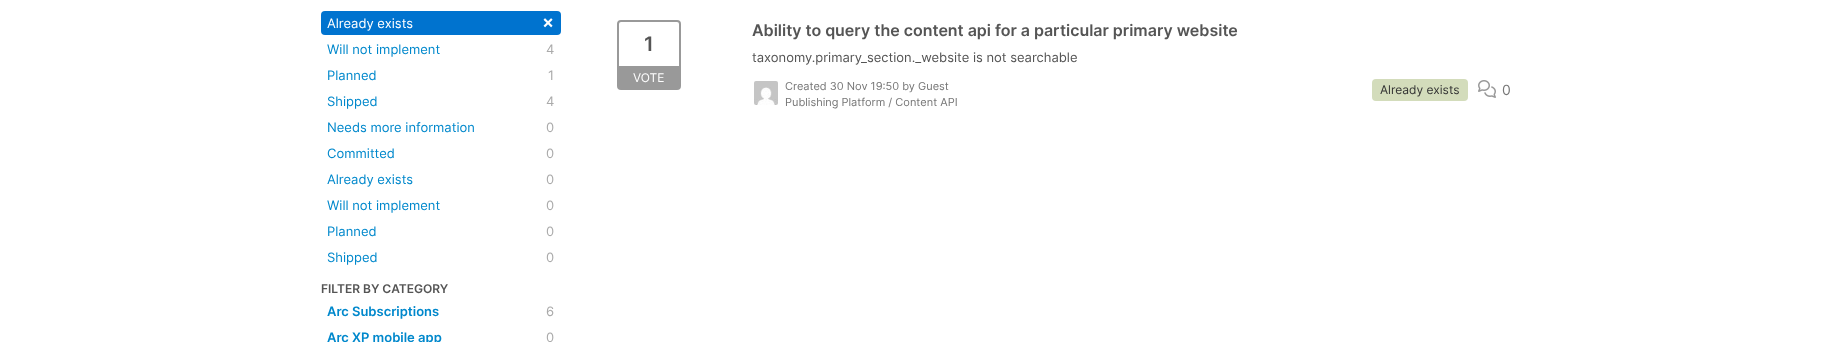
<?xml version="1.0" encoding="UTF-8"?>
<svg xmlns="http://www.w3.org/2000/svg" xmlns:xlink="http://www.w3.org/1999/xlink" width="1841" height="342">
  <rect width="100%" height="100%" fill="#ffffff" />
  <rect x="321" y="11" width="240" height="24" rx="4" fill="#0073cf" />
  <rect x="618" y="21" width="62" height="68" rx="3" fill="none" stroke="#999999" stroke-width="2" />
  <rect x="619" y="66" width="60" height="22" fill="#999999" />
  <image x="754" y="81" width="24" height="24" xlink:href="image1.png" />
  <rect x="1372" y="79" width="96" height="22" rx="4" fill="#d3dcbb" />
  <image x="1478" y="80" width="18" height="18" xlink:href="image2.png" />
  <text x="327" y="28" style="font-family: Inter; font-size: 13px; fill: #ffffff">Already exists</text>
  <text x="542" y="28" style="font-family: Inter; font-size: 18px; font-weight: 600; fill: #ffffff">×</text>
  <text x="327" y="54" style="font-family: Inter; font-size: 13px; fill: #0088cc">Will not implement</text>
  <text x="546" y="54" style="font-family: Inter; font-size: 13px; fill: #aaaaaa">4</text>
  <text x="327" y="80" style="font-family: Inter; font-size: 13px; fill: #0088cc">Planned</text>
  <text x="548" y="80" style="font-family: Inter; font-size: 13px; fill: #aaaaaa">1</text>
  <text x="327" y="106" style="font-family: Inter; font-size: 13px; fill: #0088cc">Shipped</text>
  <text x="546" y="106" style="font-family: Inter; font-size: 13px; fill: #aaaaaa">4</text>
  <text x="327" y="132" style="font-family: Inter; font-size: 13px; fill: #0088cc">Needs more information</text>
  <text x="546" y="132" style="font-family: Inter; font-size: 13px; fill: #aaaaaa">0</text>
  <text x="327" y="158" style="font-family: Inter; font-size: 13px; fill: #0088cc">Committed</text>
  <text x="546" y="158" style="font-family: Inter; font-size: 13px; fill: #aaaaaa">0</text>
  <text x="327" y="184" style="font-family: Inter; font-size: 13px; fill: #0088cc">Already exists</text>
  <text x="546" y="184" style="font-family: Inter; font-size: 13px; fill: #aaaaaa">0</text>
  <text x="327" y="210" style="font-family: Inter; font-size: 13px; fill: #0088cc">Will not implement</text>
  <text x="546" y="210" style="font-family: Inter; font-size: 13px; fill: #aaaaaa">0</text>
  <text x="327" y="236" style="font-family: Inter; font-size: 13px; fill: #0088cc">Planned</text>
  <text x="546" y="236" style="font-family: Inter; font-size: 13px; fill: #aaaaaa">0</text>
  <text x="327" y="262" style="font-family: Inter; font-size: 13px; fill: #0088cc">Shipped</text>
  <text x="546" y="262" style="font-family: Inter; font-size: 13px; fill: #aaaaaa">0</text>
  <text x="321" y="293" style="font-family: Inter; font-size: 12px; font-weight: 600; fill: #555555">FILTER BY CATEGORY</text>
  <text x="327" y="316" style="font-family: Inter; font-size: 13px; font-weight: 600; fill: #0088cc">Arc Subscriptions</text>
  <text x="546" y="316" style="font-family: Inter; font-size: 13px; fill: #aaaaaa">6</text>
  <text x="327" y="342" style="font-family: Inter; font-size: 13px; font-weight: 600; fill: #0088cc">Arc XP mobile app</text>
  <text x="546" y="342" style="font-family: Inter; font-size: 13px; fill: #aaaaaa">0</text>
  <text x="644" y="51" style="font-family: Inter; font-size: 20px; font-weight: 600; fill: #555555">1</text>
  <text x="633" y="82" style="font-family: Inter; font-size: 12px; fill: #ffffff">VOTE</text>
  <text x="752" y="36" style="font-family: Inter; font-size: 16px; font-weight: 600; fill: #555555">Ability to query the content api for a particular primary website</text>
  <text x="752" y="62" style="font-family: Inter; font-size: 13px; fill: #555555">taxonomy.primary_section._website is not searchable</text>
  <text x="785" y="90" style="font-family: Inter; font-size: 11px; fill: #777777">Created 30 Nov 19:50 by Guest</text>
  <text x="785" y="106" style="font-family: Inter; font-size: 11px; fill: #777777">Publishing Platform / Content API</text>
  <text x="1380" y="94" style="font-family: Inter; font-size: 12px; fill: #333333">Already exists</text>
  <text x="1502" y="95" style="font-family: Inter; font-size: 14px; fill: #777777">0</text>
</svg>
